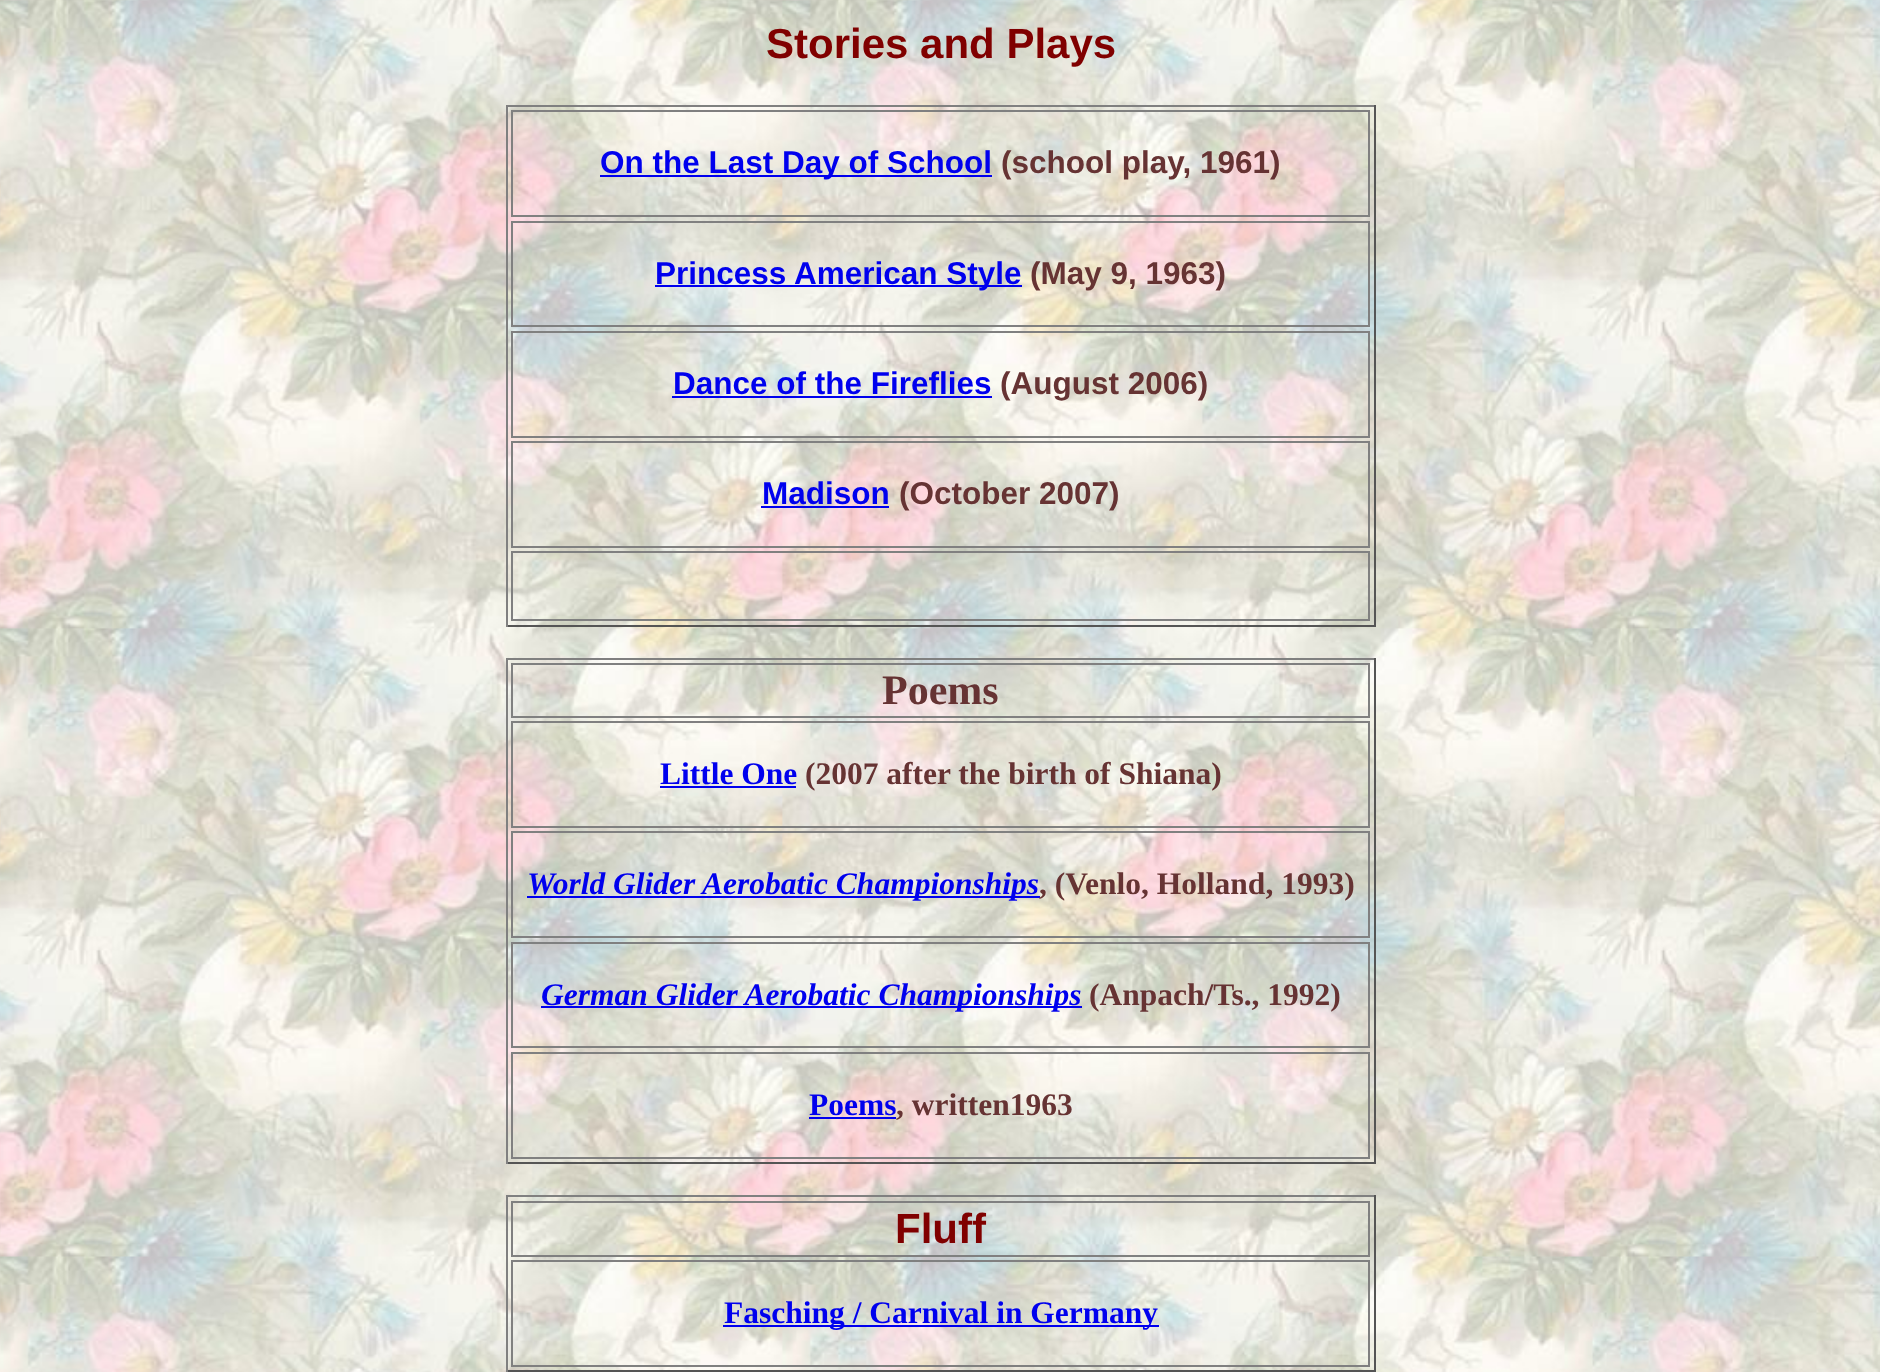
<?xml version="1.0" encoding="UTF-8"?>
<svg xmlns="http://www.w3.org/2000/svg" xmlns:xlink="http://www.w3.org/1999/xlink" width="1880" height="1372">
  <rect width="100%" height="100%" fill="#ffffff" />
  <image x="0" y="0" width="1880" height="1372" xlink:href="image1.png" />
  <rect x="506" y="105" width="870" height="2" fill="#808080" />
  <rect x="1374" y="105" width="2" height="522" fill="#555555" />
  <rect x="506" y="625" width="870" height="2" fill="#555555" />
  <rect x="506" y="105" width="2" height="522" fill="#808080" />
  <rect x="512" y="111" width="857" height="105" fill="none" stroke="#808080" stroke-width="2" />
  <rect x="600" y="175" width="392" height="2" fill="#0000ee" />
  <rect x="512" y="222" width="857" height="104" fill="none" stroke="#808080" stroke-width="2" />
  <rect x="655" y="285" width="367" height="2" fill="#0000ee" />
  <rect x="512" y="332" width="857" height="105" fill="none" stroke="#808080" stroke-width="2" />
  <rect x="672" y="396" width="320" height="2" fill="#0000ee" />
  <rect x="512" y="442" width="857" height="105" fill="none" stroke="#808080" stroke-width="2" />
  <rect x="761" y="506" width="128" height="2" fill="#0000ee" />
  <rect x="512" y="552" width="857" height="68" fill="none" stroke="#808080" stroke-width="2" />
  <rect x="506" y="658" width="870" height="2" fill="#808080" />
  <rect x="1374" y="658" width="2" height="506" fill="#555555" />
  <rect x="506" y="1162" width="870" height="2" fill="#555555" />
  <rect x="506" y="658" width="2" height="506" fill="#808080" />
  <rect x="512" y="664" width="857" height="53" fill="none" stroke="#808080" stroke-width="2" />
  <rect x="512" y="722" width="857" height="105" fill="none" stroke="#808080" stroke-width="2" />
  <rect x="660" y="786" width="136" height="2" fill="#0000ee" />
  <rect x="512" y="832" width="857" height="105" fill="none" stroke="#808080" stroke-width="2" />
  <rect x="527" y="896" width="513" height="2" fill="#0000ee" />
  <rect x="512" y="943" width="857" height="104" fill="none" stroke="#808080" stroke-width="2" />
  <rect x="541" y="1006" width="541" height="2" fill="#0000ee" />
  <rect x="512" y="1053" width="857" height="105" fill="none" stroke="#808080" stroke-width="2" />
  <rect x="809" y="1117" width="87" height="2" fill="#0000ee" />
  <rect x="506" y="1195" width="870" height="2" fill="#808080" />
  <rect x="1374" y="1195" width="2" height="177" fill="#555555" />
  <rect x="506" y="1370" width="870" height="2" fill="#555555" />
  <rect x="506" y="1195" width="2" height="177" fill="#808080" />
  <rect x="512" y="1202" width="857" height="54" fill="none" stroke="#808080" stroke-width="2" />
  <rect x="512" y="1261" width="857" height="105" fill="none" stroke="#808080" stroke-width="2" />
  <rect x="723" y="1325" width="436" height="2" fill="#0000ee" />
  <text x="766" y="58" style="font-family: Liberation Sans; font-size: 42px; font-weight: bold; fill: #800000">Stories and Plays</text>
  <text x="600" y="173" style="font-family: Liberation Sans; font-size: 31.5px; font-weight: bold; fill: #0000ee">On the Last Day of School</text>
  <text x="1001" y="173" style="font-family: Liberation Sans; font-size: 31.5px; font-weight: bold; fill: #663333">(school play, 1961)</text>
  <text x="655" y="284" style="font-family: Liberation Sans; font-size: 31.5px; font-weight: bold; fill: #0000ee">Princess American Style</text>
  <text x="1030" y="284" style="font-family: Liberation Sans; font-size: 31.5px; font-weight: bold; fill: #663333">(May 9, 1963)</text>
  <text x="673" y="394" style="font-family: Liberation Sans; font-size: 31.5px; font-weight: bold; fill: #0000ee">Dance of the Fireflies</text>
  <text x="1000" y="394" style="font-family: Liberation Sans; font-size: 31.5px; font-weight: bold; fill: #663333">(August 2006)</text>
  <text x="762" y="504" style="font-family: Liberation Sans; font-size: 31.5px; font-weight: bold; fill: #0000ee">Madison</text>
  <text x="899" y="504" style="font-family: Liberation Sans; font-size: 31.5px; font-weight: bold; fill: #663333">(October 2007)</text>
  <text x="882" y="704" style="font-family: Liberation Serif; font-size: 42px; font-weight: bold; fill: #663333">Poems</text>
  <text x="660" y="784" style="font-family: Liberation Serif; font-size: 31.5px; font-weight: bold; fill: #0000ee">Little One</text>
  <text x="805" y="784" style="font-family: Liberation Serif; font-size: 31.5px; font-weight: bold; fill: #663333">(2007 after the birth of Shiana)</text>
  <text x="527" y="894" style="font-family: Liberation Serif; font-size: 31.5px; font-weight: bold; font-style: italic; fill: #0000ee">World Glider Aerobatic Championships</text>
  <text x="1039" y="894" style="font-family: Liberation Serif; font-size: 31.5px; font-weight: bold; fill: #663333">, (Venlo, Holland, 1993)</text>
  <text x="541" y="1005" style="font-family: Liberation Serif; font-size: 31.5px; font-weight: bold; font-style: italic; fill: #0000ee">German Glider Aerobatic Championships</text>
  <text x="1089" y="1005" style="font-family: Liberation Serif; font-size: 31.5px; font-weight: bold; fill: #663333">(Anpach/Ts., 1992)</text>
  <text x="809" y="1115" style="font-family: Liberation Serif; font-size: 31.5px; font-weight: bold; fill: #0000ee">Poems</text>
  <text x="896" y="1115" style="font-family: Liberation Serif; font-size: 31.5px; font-weight: bold; fill: #663333">, written1963</text>
  <text x="895" y="1243" style="font-family: Liberation Sans; font-size: 42px; font-weight: bold; fill: #800000">Fluff</text>
  <text x="724" y="1323" style="font-family: Liberation Serif; font-size: 31.5px; font-weight: bold; fill: #0000ee">Fasching / Carnival in Germany</text>
</svg>
